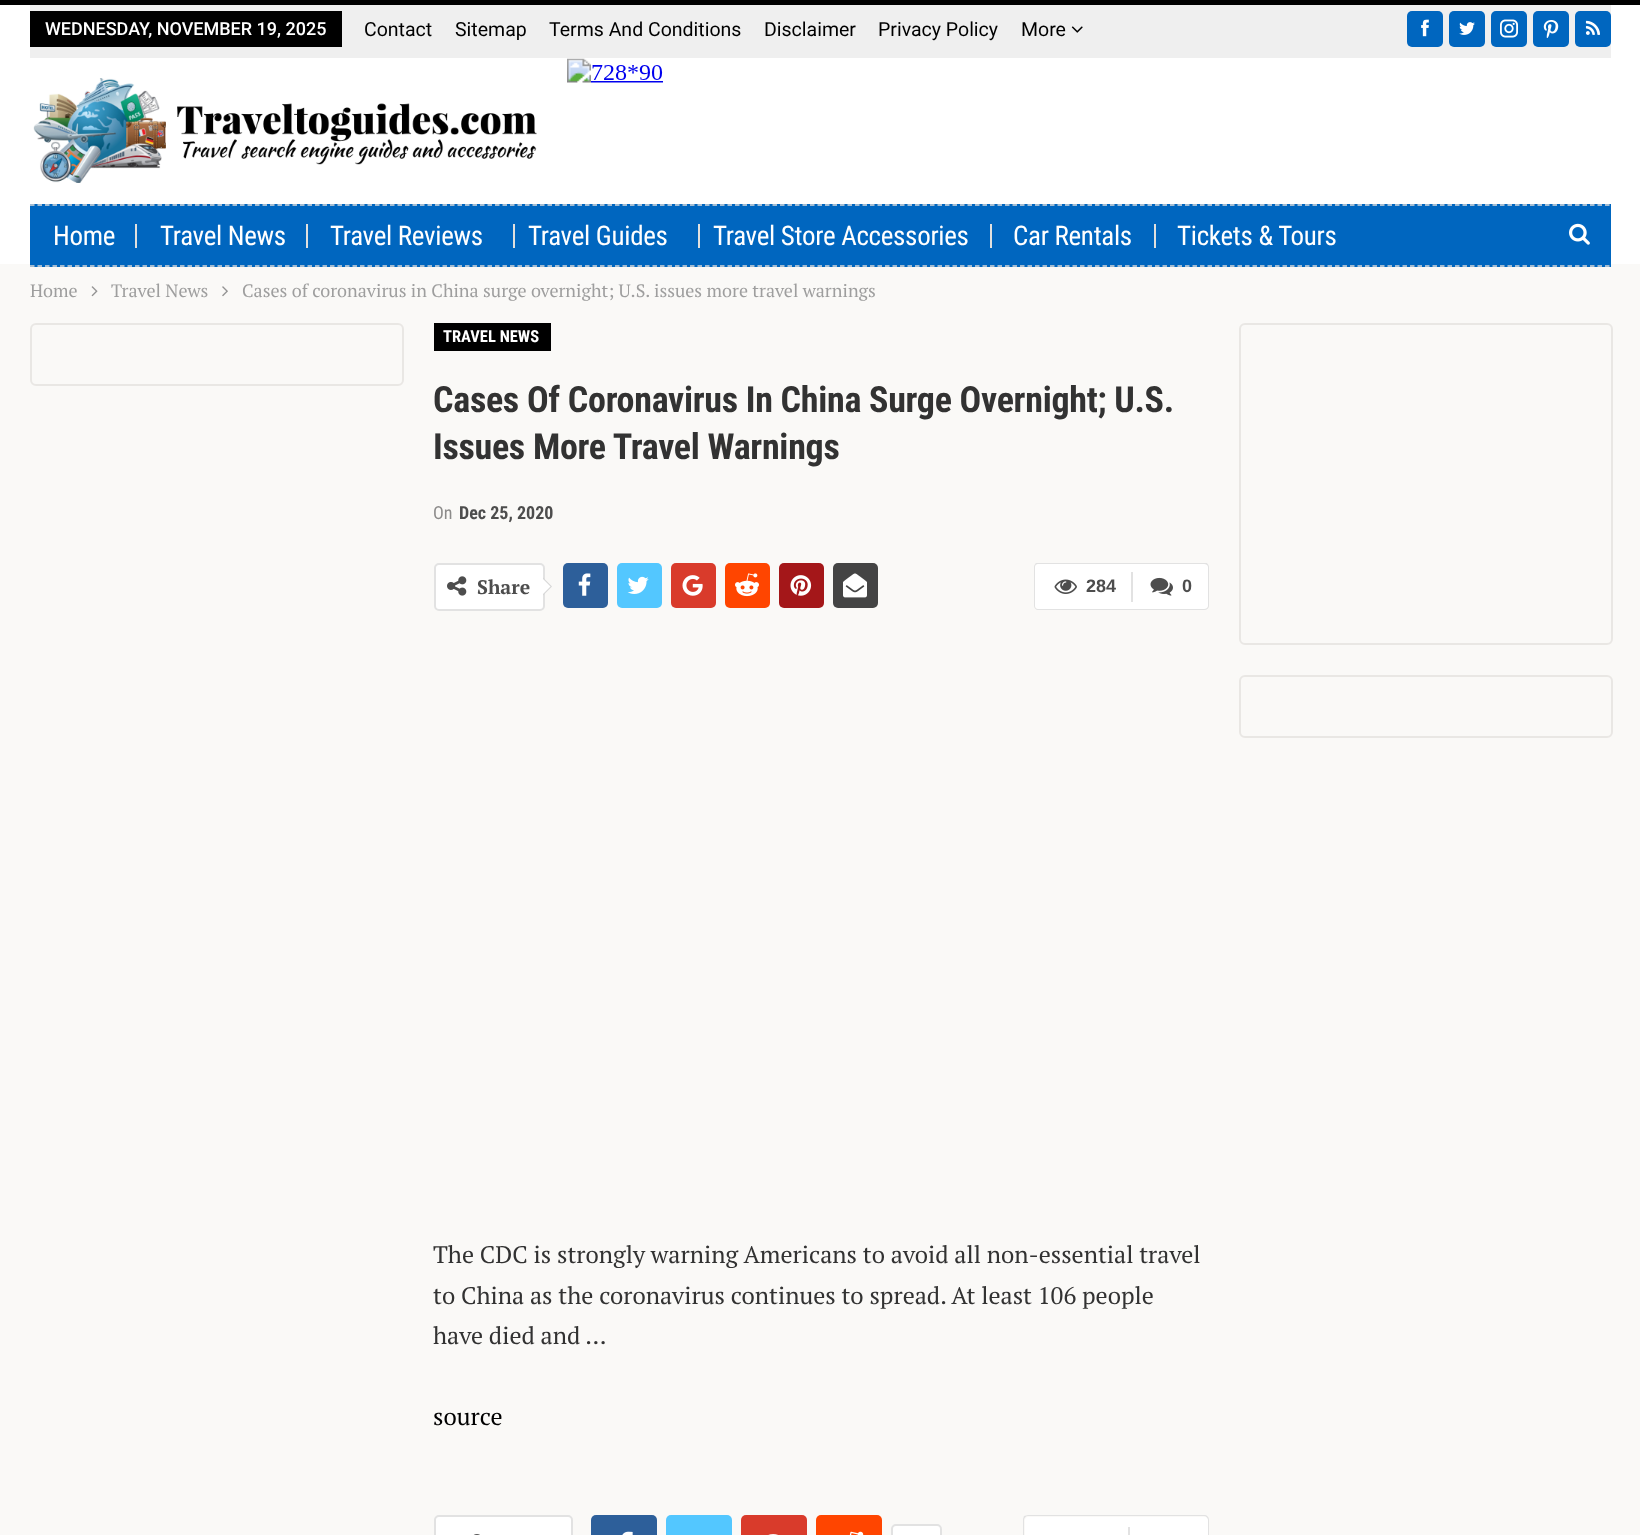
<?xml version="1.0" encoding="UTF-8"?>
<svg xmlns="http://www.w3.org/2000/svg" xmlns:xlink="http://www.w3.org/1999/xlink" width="1640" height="1535">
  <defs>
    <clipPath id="clip1"><rect x="1034" y="563" width="175" height="48" /></clipPath>
    <clipPath id="clip2"><rect x="434" y="323" width="775" height="210" /></clipPath>
  </defs>
  <rect width="100%" height="100%" fill="#000000" />
  <rect y="264" width="1640" height="1271" fill="#faf9f7" />
  <rect y="5" width="1640" height="259" fill="#ffffff" />
  <rect x="30" y="5" width="1581" height="53" fill="#efefef" />
  <rect x="30" y="11" width="312" height="36" fill="#000000" />
  <image x="1071" y="26" width="12" height="7" xlink:href="image1.png" />
  <rect x="1407" y="11" width="36" height="36" rx="5" fill="#0066bf" />
  <image x="1421" y="19" width="8" height="18" xlink:href="image2.png" />
  <rect x="1449" y="11" width="36" height="36" rx="5" fill="#0066bf" />
  <image x="1459" y="22" width="16" height="13" xlink:href="image3.png" />
  <rect x="1491" y="11" width="36" height="36" rx="5" fill="#0066bf" />
  <image x="1500" y="19" width="18" height="19" xlink:href="image4.png" />
  <rect x="1533" y="11" width="36" height="36" rx="5" fill="#0066bf" />
  <image x="1543" y="20" width="16" height="18" xlink:href="image5.png" />
  <rect x="1575" y="11" width="36" height="36" rx="5" fill="#0066bf" />
  <image x="1585" y="20" width="15" height="15" xlink:href="image6.png" />
  <image x="567" y="58" width="96" height="25" xlink:href="image7.png" />
  <image x="33" y="78" width="504" height="105" xlink:href="image8.png" />
  <rect x="30" y="204" width="1581" height="63" fill="#0066bf" />
  <path d="M 30 205 h 1581" fill="none" stroke="#d9d9d9" stroke-width="1.5" stroke-dasharray="4.5 3" />
  <path d="M 30 266 h 1581" fill="none" stroke="#d9d9d9" stroke-width="1.5" stroke-dasharray="4.5 3" />
  <rect x="135" y="224" width="2" height="24" fill="#e1e0de" />
  <rect x="306" y="224" width="2" height="24" fill="#e1e0de" />
  <rect x="513" y="224" width="2" height="24" fill="#e1e0de" />
  <rect x="698" y="224" width="2" height="24" fill="#e1e0de" />
  <rect x="990" y="224" width="2" height="24" fill="#e1e0de" />
  <rect x="1154" y="224" width="2" height="24" fill="#e1e0de" />
  <image x="1569" y="223" width="21" height="22" xlink:href="image9.png" />
  <image x="91" y="286" width="7" height="11" xlink:href="image10.png" />
  <image x="222" y="286" width="6" height="11" xlink:href="image11.png" />
  <rect x="31" y="324" width="372" height="61" rx="5" fill="none" stroke="#e9e7e4" stroke-width="2" />
  <rect x="434" y="323" width="117" height="28" fill="#000000" />
  <rect x="435" y="564" width="109" height="46" rx="4" fill="#ffffff" stroke="#e2e2e2" stroke-width="2" />
  <image x="447" y="576" width="20" height="20" xlink:href="image12.png" />
  <path d="M 543 595.5 v -18 l 9 9 z" fill="#d7d7d7" />
  <path d="M 543 594 v -15 l 7.5 7.5 z" fill="#ffffff" />
  <rect x="563" y="563" width="45" height="45" rx="5" fill="#2d5f9a" />
  <image x="578" y="573" width="13" height="23" xlink:href="image13.png" />
  <rect x="617" y="563" width="45" height="45" rx="5" fill="#53c7ff" />
  <image x="627" y="576" width="22" height="18" xlink:href="image14.png" />
  <rect x="671" y="563" width="45" height="45" rx="5" fill="#d93b2b" />
  <image x="682" y="575" width="21" height="21" xlink:href="image15.png" />
  <rect x="725" y="563" width="45" height="45" rx="5" fill="#ff4500" />
  <image x="735" y="573" width="24" height="24" xlink:href="image16.png" />
  <rect x="779" y="563" width="45" height="45" rx="5" fill="#a41719" />
  <image x="790" y="575" width="22" height="21" xlink:href="image17.png" />
  <rect x="833" y="563" width="45" height="45" rx="5" fill="#444444" />
  <image x="843" y="573" width="24" height="25" xlink:href="image18.png" />
  <path d="M 1038 564 h 93 v 45 h -93 c -1.5 0 -3 -1.5 -3 -3 v -39 c 0 -1.5 1.5 -3 3 -3 z" fill="#ffffff" />
  <g clip-path="url(#clip1)">
    <path d="M 1038 562 h 93 v 48 h -93 c -2 0 -4 -2 -4 -4 v -39 c 0 -2 2 -5 4 -5 z m 0 2 h 93 v 45 h -93 c -2 0 -3 -1 -3 -3 v -39 c 0 -2 1 -3 3 -3 z" fill="#e2e2e2" fill-rule="evenodd" />
  </g>
  <image x="1054" y="579" width="23" height="15" xlink:href="image19.png" />
  <path d="M 1131 564 h 74 c 1.5 0 3 1.5 3 3 v 39 c 0 1.5 -1.5 3 -3 3 h -74 z" fill="#ffffff" />
  <g clip-path="url(#clip1)">
    <path d="M 1131 562 h 73 c 3 0 5 3 5 5 v 39 c 0 2 -2 4 -5 4 h -73 z m 0 2 h 73 c 2 0 4 1 4 3 v 39 c 0 2 -2 3 -4 3 h -73 z" fill="#e2e2e2" fill-rule="evenodd" />
  </g>
  <rect x="1131" y="572" width="2" height="30" fill="#e2e2e2" />
  <image x="1150" y="577" width="23" height="19" xlink:href="image20.png" />
  <rect x="435" y="1516" width="137" height="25" rx="4" fill="#ffffff" stroke="#e2e2e2" stroke-width="2" />
  <image x="473" y="1534" width="7" height="1" xlink:href="image21.png" />
  <rect x="591" y="1515" width="66" height="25" rx="5" fill="#2d5f9a" />
  <image x="622" y="1531" width="11" height="4" xlink:href="image22.png" />
  <rect x="666" y="1515" width="66" height="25" rx="5" fill="#53c7ff" />
  <rect x="741" y="1515" width="66" height="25" rx="5" fill="#d93b2b" />
  <image x="768" y="1534" width="10" height="1" xlink:href="image23.png" />
  <rect x="816" y="1515" width="66" height="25" rx="5" fill="#ff4500" />
  <image x="849" y="1531" width="15" height="4" xlink:href="image24.png" />
  <rect x="892" y="1525" width="49" height="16" rx="4" fill="#ffffff" stroke="#e2e2e2" stroke-width="2" />
  <path d="M 1028 1517 h 100 v 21 h -100 c -1.5 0 -3 -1.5 -3 -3 v -15 c 0 -1.5 1.5 -3 3 -3 z" fill="#ffffff" />
  <path d="M 1028 1515 h 100 v 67 h -100 h -3 l -2 -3 v -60 l 1 -3 z m 0 1 h 100 v 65 h -100 c -2 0 -4 -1 -4 -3 v -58 c 0 -2 2 -4 4 -4 z" fill="#e2e2e2" fill-rule="evenodd" />
  <path d="M 1128 1517 h 77 c 1.5 0 3 1.5 3 3 v 15 c 0 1.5 -1.5 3 -3 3 h -77 z" fill="#ffffff" />
  <path d="M 1128 1515 h 76 c 3 0 5 2 5 5 v 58 c 0 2 -2 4 -5 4 h -76 z m 0 1 h 76 c 2 0 4 2 4 4 v 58 c 0 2 -2 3 -4 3 h -76 z" fill="#e2e2e2" fill-rule="evenodd" />
  <rect x="1128" y="1527" width="2" height="8" fill="#e2e2e2" />
  <rect x="1240" y="324" width="372" height="320" rx="5" fill="none" stroke="#e9e7e4" stroke-width="2" />
  <rect x="1240" y="676" width="372" height="61" rx="5" fill="none" stroke="#e9e7e4" stroke-width="2" />
  <text x="45" y="35" style="font-family: Roboto; font-size: 18px; font-weight: 500; fill: #ffffff">WEDNESDAY, NOVEMBER 19, 2025</text>
  <text x="364" y="36" style="font-family: Roboto; font-size: 19.5px; fill: #000000">Contact</text>
  <text x="455" y="36" style="font-family: Roboto; font-size: 19.5px; fill: #000000">Sitemap</text>
  <text x="549" y="36" style="font-family: Roboto; font-size: 19.5px; fill: #000000">Terms And Conditions</text>
  <text x="764" y="36" style="font-family: Roboto; font-size: 19.5px; fill: #000000">Disclaimer</text>
  <text x="878" y="36" style="font-family: Roboto; font-size: 19.5px; fill: #000000">Privacy Policy</text>
  <text x="1021" y="36" style="font-family: Roboto; font-size: 19.5px; fill: #000000">More</text>
  <text x="53" y="245" style="font-family: Roboto Condensed; font-size: 27px; letter-spacing: -0.3px; fill: #ffffff">Home</text>
  <text x="160" y="245" style="font-family: Roboto Condensed; font-size: 27px; letter-spacing: -0.3px; fill: #ffffff">Travel News</text>
  <text x="330" y="245" style="font-family: Roboto Condensed; font-size: 27px; letter-spacing: -0.3px; fill: #ffffff">Travel Reviews</text>
  <text x="528" y="245" style="font-family: Roboto Condensed; font-size: 27px; letter-spacing: -0.3px; fill: #ffffff">Travel Guides</text>
  <text x="713" y="245" style="font-family: Roboto Condensed; font-size: 27px; letter-spacing: -0.3px; fill: #ffffff">Travel Store Accessories</text>
  <text x="1013" y="245" style="font-family: Roboto Condensed; font-size: 27px; letter-spacing: -0.3px; fill: #ffffff">Car Rentals</text>
  <text x="1177" y="245" style="font-family: Roboto Condensed; font-size: 27px; letter-spacing: -0.3px; fill: #ffffff">Tickets &amp; Tours</text>
  <text x="30" y="297" style="font-family: PT Serif; font-size: 18px; fill: #9e9e9e">Home</text>
  <text x="111" y="297" style="font-family: PT Serif; font-size: 18px; fill: #9e9e9e">Travel News</text>
  <text x="242" y="297" style="font-family: PT Serif; font-size: 18px; fill: #9e9e9e">Cases of coronavirus in China surge overnight; U.S. issues more travel warnings</text>
  <text x="443" y="342" style="font-family: Roboto Condensed; font-size: 16.5px; font-weight: bold; fill: #ffffff">TRAVEL NEWS</text>
  <text x="433" y="412" style="font-family: Roboto Condensed; font-size: 36px; font-weight: bold; letter-spacing: -0.3px; fill: #323232">Cases Of Coronavirus In China Surge Overnight; U.S.</text>
  <text x="433" y="459" style="font-family: Roboto Condensed; font-size: 36px; font-weight: bold; letter-spacing: -0.3px; fill: #323232">Issues More Travel Warnings</text>
  <g clip-path="url(#clip2)">
    <text x="433" y="519" style="font-family: Roboto Condensed; font-size: 18px; fill: #8c8b8a">On</text>
  </g>
  <text x="459" y="519" style="font-family: Roboto Condensed; font-size: 18px; font-weight: bold; fill: #4d4d4d">Dec 25, 2020</text>
  <text x="477" y="594" style="font-family: PT Serif; font-size: 19.5px; font-weight: bold; fill: #4d4d4d">Share</text>
  <text x="1086" y="592" style="font-family: Liberation Sans; font-size: 18px; font-weight: bold; fill: #4d4d4d">284</text>
  <text x="1182" y="592" style="font-family: Liberation Sans; font-size: 18px; font-weight: bold; fill: #4d4d4d">0</text>
  <text x="433" y="1263" style="font-family: PT Serif; font-size: 24px; fill: #323232">The CDC is strongly warning Americans to avoid all non-essential travel</text>
  <text x="433" y="1304" style="font-family: PT Serif; font-size: 24px; fill: #323232">to China as the coronavirus continues to spread. At least 106 people</text>
  <text x="433" y="1344" style="font-family: PT Serif; font-size: 24px; fill: #323232">have died and …</text>
  <text x="433" y="1425" style="font-family: PT Serif; font-size: 24px; fill: #000000">source</text>
</svg>
